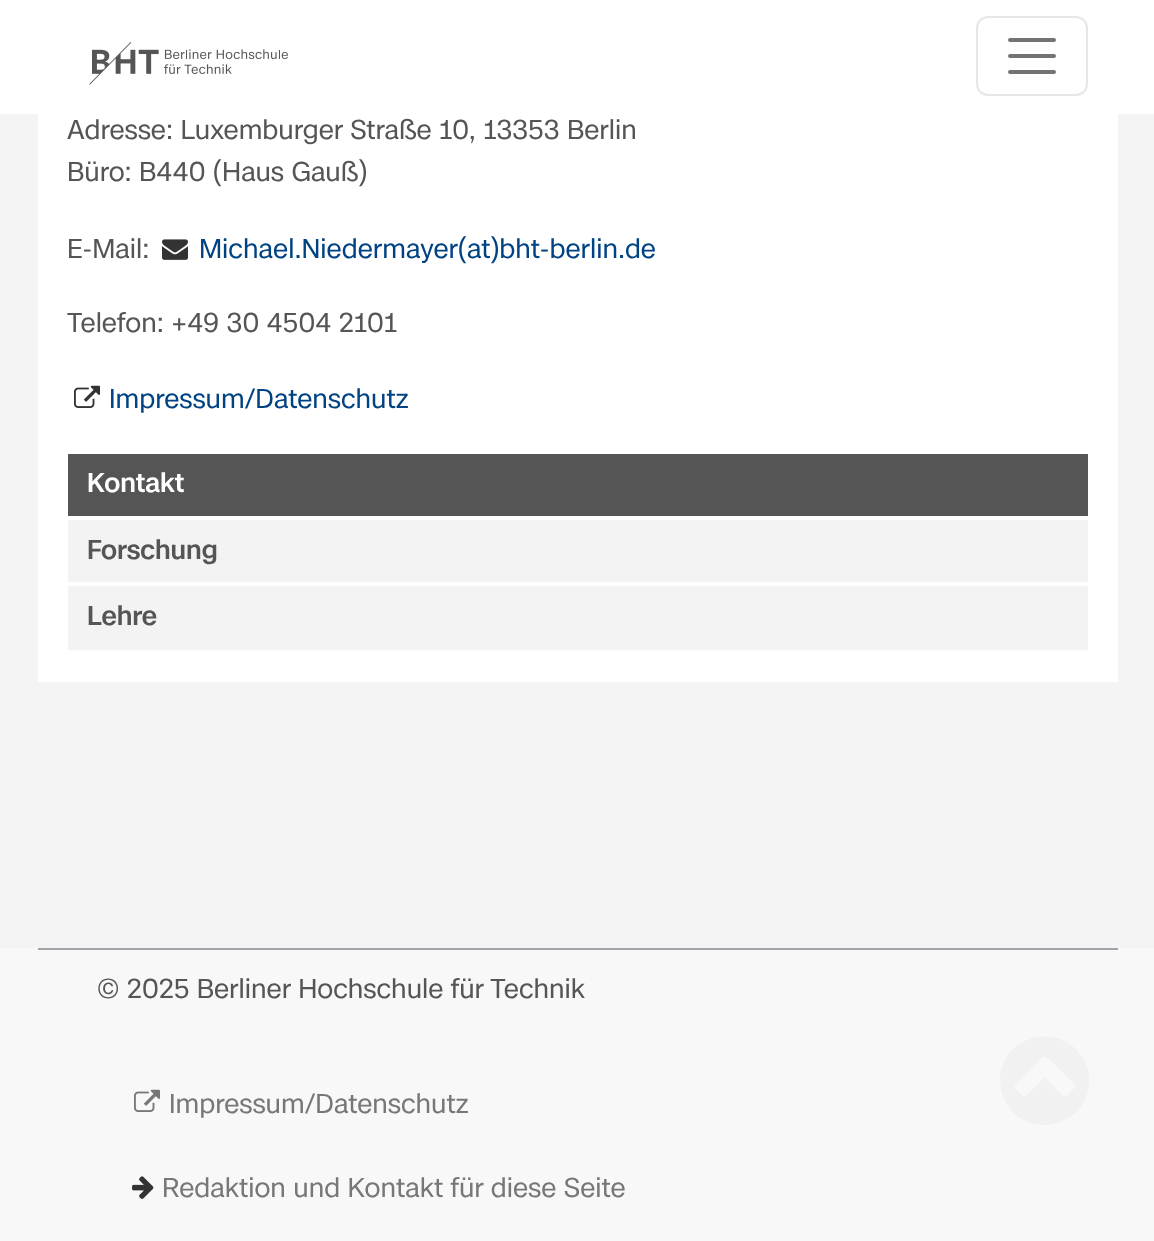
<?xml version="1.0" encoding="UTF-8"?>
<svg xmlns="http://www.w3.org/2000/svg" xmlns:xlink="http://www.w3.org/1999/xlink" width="1154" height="1241">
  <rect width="100%" height="100%" fill="#f4f4f4" />
  <rect width="1154" height="114" fill="#ffffff" />
  <image x="89" y="42" width="199" height="43" xlink:href="image1.png" />
  <rect x="977" y="17" width="110" height="78" rx="11" fill="none" stroke="#e6e6e6" stroke-width="2" />
  <path d="M 1010 40 h 44 m -44 16 h 44 m -44 16 h 44" fill="none" stroke="#737373" stroke-width="4" stroke-linecap="round" />
  <rect x="38" y="114" width="1080" height="568" fill="#ffffff" />
  <image x="162" y="239" width="26" height="21" xlink:href="image2.png" />
  <image x="74" y="385" width="26" height="23" xlink:href="image3.png" />
  <rect x="68" y="454" width="1020" height="62" fill="#555555" />
  <rect x="68" y="520" width="1020" height="62" fill="#f3f3f3" />
  <rect x="68" y="586" width="1020" height="64" fill="#f3f3f3" />
  <rect y="948" width="1154" height="293" fill="#f8f8f8" />
  <rect x="38" y="948" width="1080" height="2" fill="#a2a3aa" />
  <image x="134" y="1089" width="26" height="23" xlink:href="image4.png" />
  <image x="132" y="1176" width="22" height="23" xlink:href="image5.png" />
  <path d="M 1068 1095 c 10 -11 9 -8 -3 -20 l -13 -13 c -8 -7 -7 -7 -14 0 l -22 22 c -3 3 0 5 2 7 c 6 6 6 7 12 1 l 15 -15 l 11 12 c 2 2 8 10 12 6 z m 15 -37 c 5 8 7 17 6 26 c -3 43 -61 57 -83 19 c -4 -7 -6 -16 -6 -25 c 3 -44 61 -57 83 -20 z" fill="#f1f1f1" />
  <text x="67" y="139" style="font-family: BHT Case; font-size: 26px; fill: #555555">Adresse: Luxemburger Straße 10, 13353 Berlin</text>
  <text x="67" y="181" style="font-family: BHT Case; font-size: 26px; fill: #555555">Büro: B440 (Haus Gauß)</text>
  <text x="67" y="258" style="font-family: BHT Case; font-size: 26px; fill: #555555">E-Mail:</text>
  <text x="199" y="258" style="font-family: BHT Case; font-size: 26px; fill: #004282">Michael.Niedermayer(at)bht-berlin.de</text>
  <text x="67" y="332" style="font-family: BHT Case; font-size: 26px; fill: #555555">Telefon: +49 30 4504 2101</text>
  <text x="109" y="408" style="font-family: BHT Case; font-size: 26px; fill: #004282">Impressum/Datenschutz</text>
  <text x="87" y="492" style="font-family: BHT Case; font-size: 26px; font-weight: 500; fill: #ffffff">Kontakt</text>
  <text x="87" y="559" style="font-family: BHT Case; font-size: 26px; font-weight: 500; fill: #555555">Forschung</text>
  <text x="87" y="625" style="font-family: BHT Case; font-size: 26px; font-weight: 500; fill: #555555">Lehre</text>
  <text x="97" y="998" style="font-family: BHT Case; font-size: 26px; fill: #555555">© 2025 Berliner Hochschule für Technik</text>
  <text x="169" y="1113" style="font-family: BHT Case; font-size: 26px; fill: #777777">Impressum/Datenschutz</text>
  <text x="162" y="1197" style="font-family: BHT Case; font-size: 26px; fill: #777777">Redaktion und Kontakt für diese Seite</text>
</svg>
